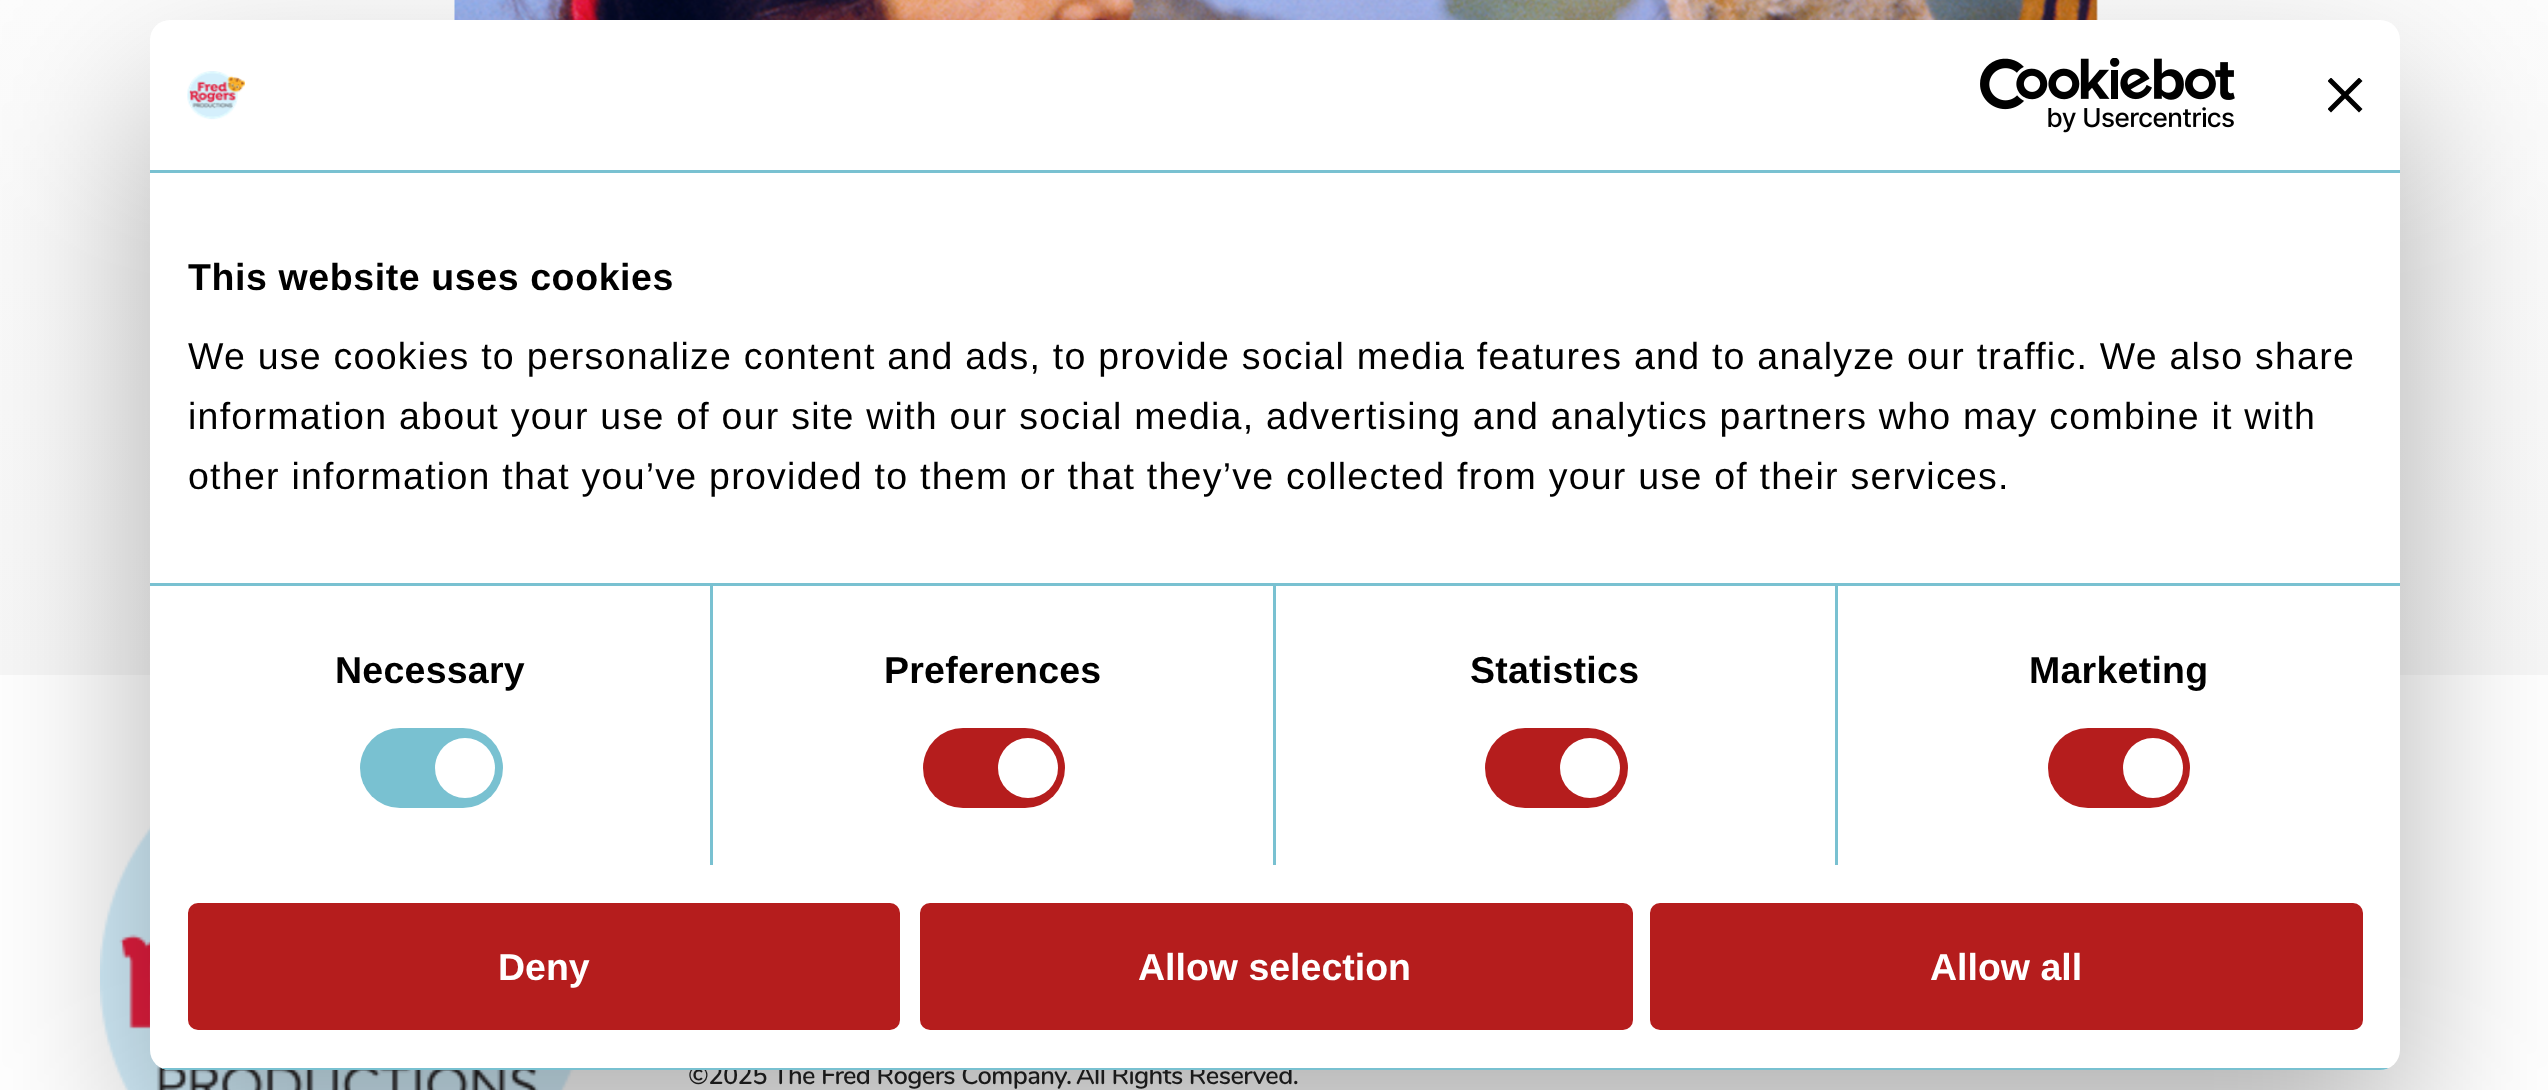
<?xml version="1.0" encoding="UTF-8"?>
<svg xmlns="http://www.w3.org/2000/svg" xmlns:xlink="http://www.w3.org/1999/xlink" width="2548" height="1090">
  <defs>
    <linearGradient id="g1" gradientUnits="userSpaceOnUse" x1="1275" y1="-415" x2="1275" y2="675"><stop offset="0" stop-color="#ffffff" /><stop offset="1" stop-color="#f7f7f7" /></linearGradient>
    <clipPath id="clip1"><rect x="150" y="20" width="2250" height="1050" rx="20" /></clipPath>
    <clipPath id="clip2"><rect x="2328" y="78" width="35" height="35" /></clipPath>
  </defs>
  <rect width="100%" height="100%" fill="#ffffff" />
  <rect width="2548" height="675" fill="url(#g1)" />
  <image x="454" y="0" width="1644" height="20" xlink:href="image1.png" />
  <image x="100" y="825" width="474" height="265" xlink:href="image4.png" />
  <rect x="150" y="100" width="2250" height="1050" rx="20" fill="#000000" fill-opacity="0.3" filter="blur(85px)" />
  <text x="688" y="1084" style="font-family: Nunito; font-size: 25.5px; font-weight: 600; letter-spacing: -0.6px; fill: #1a1a1a">©2025 The Fred Rogers Company.</text>
  <text x="1076" y="1084" style="font-family: Nunito; font-size: 25.5px; font-weight: 600; letter-spacing: -0.6px; fill: #1a1a1a">All Rights Reserved.</text>
  <rect x="150" y="20" width="2250" height="1050" rx="20" fill="#ffffff" />
  <rect x="1652.5" y="905.5" width="708" height="122" rx="7.5" fill="#b51d1d" stroke="#b51d1d" stroke-width="5" />
  <text x="1930" y="980" style="font-family: Liberation Sans; font-size: 37.5px; font-weight: bold; fill: #ffffff">Allow all</text>
  <rect x="922.5" y="905.5" width="708" height="122" rx="7.5" fill="#b51d1d" stroke="#b51d1d" stroke-width="5" />
  <text x="1138" y="980" style="font-family: Liberation Sans; font-size: 37.5px; font-weight: bold; fill: #ffffff">Allow selection</text>
  <rect x="190.5" y="905.5" width="707" height="122" rx="7.5" fill="#b51d1d" stroke="#b51d1d" stroke-width="5" />
  <text x="498" y="980" style="font-family: Liberation Sans; font-size: 37.5px; font-weight: bold; fill: #ffffff">Deny</text>
  <g clip-path="url(#clip1)">
    <rect x="161" y="1068" width="2228" height="2" fill="#79c1d1" />
  </g>
  <rect x="2048" y="728" width="142" height="80" rx="40" fill="#b51d1d" />
  <circle cx="2153" cy="768" r="30" fill="#ffffff" />
  <rect x="1485" y="728" width="143" height="80" rx="40" fill="#b51d1d" />
  <circle cx="1590" cy="768" r="30" fill="#ffffff" />
  <rect x="923" y="728" width="142" height="80" rx="40" fill="#b51d1d" />
  <circle cx="1028" cy="768" r="30" fill="#ffffff" />
  <rect x="360" y="728" width="143" height="80" rx="40" fill="#79c1d1" />
  <circle cx="465" cy="768" r="30" fill="#ffffff" />
  <text x="188" y="489" style="font-family: Liberation Sans; font-size: 37.5px; letter-spacing: 1.25px; fill: #000000">other information that you’ve provided to them or that they’ve collected from your use of their services.</text>
  <text x="188" y="429" style="font-family: Liberation Sans; font-size: 37.5px; letter-spacing: 1.25px; fill: #000000">information about your use of our site with our social media, advertising and analytics partners who may combine it with</text>
  <text x="188" y="369" style="font-family: Liberation Sans; font-size: 37.5px; letter-spacing: 1.25px; fill: #000000">We use cookies to personalize content and ads, to provide social media features and to analyze our traffic. We also share</text>
  <text x="188" y="290" style="font-family: Liberation Sans; font-size: 37.5px; font-weight: bold; letter-spacing: 0.6px; fill: #000000">This website uses cookies</text>
  <rect x="1835" y="585" width="3" height="280" fill="#79c1d1" />
  <rect x="1273" y="585" width="3" height="280" fill="#79c1d1" />
  <rect x="710" y="585" width="3" height="280" fill="#79c1d1" />
  <rect x="150" y="583" width="2250" height="3" fill="#79c1d1" />
  <text x="2029" y="683" style="font-family: Liberation Sans; font-size: 37.5px; font-weight: bold; letter-spacing: 0.25px; fill: #000000">Marketing</text>
  <text x="1470" y="683" style="font-family: Liberation Sans; font-size: 37.5px; font-weight: bold; letter-spacing: 0.25px; fill: #000000">Statistics</text>
  <text x="884" y="683" style="font-family: Liberation Sans; font-size: 37.5px; font-weight: bold; letter-spacing: 0.25px; fill: #000000">Preferences</text>
  <text x="335" y="683" style="font-family: Liberation Sans; font-size: 37.5px; font-weight: bold; letter-spacing: 0.25px; fill: #000000">Necessary</text>
  <g clip-path="url(#clip2)">
    <path d="M 2362.5 81 l -3.5 -3.5 l -14 14 l -14 -14 l -3.5 3.5 l 14 14 l -14 14 l 3.5 3.5 l 14 -14 l 14 14 l 3.5 -3.5 l -14 -14 z" fill="#000000" />
  </g>
  <image x="1980" y="58" width="255" height="75" xlink:href="image3.png" />
  <image x="187" y="71" width="58" height="49" xlink:href="image2.png" />
  <rect x="150" y="170" width="2250" height="3" fill="#79c1d1" />
</svg>
